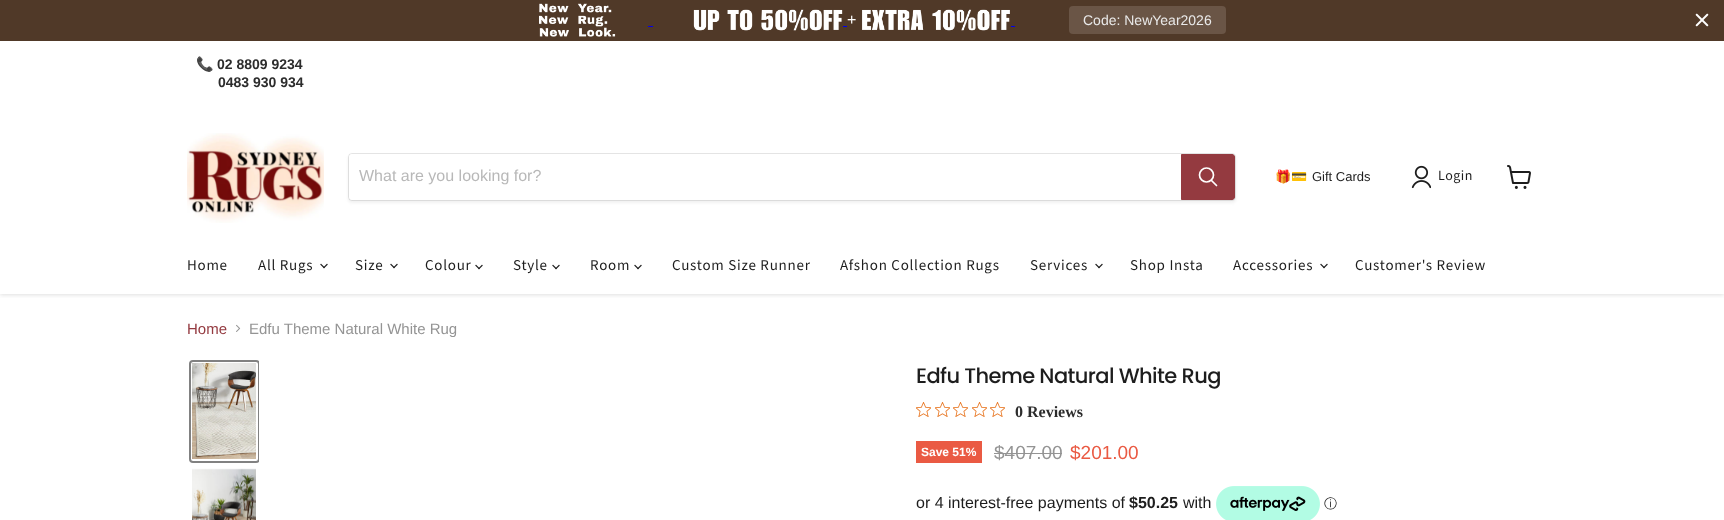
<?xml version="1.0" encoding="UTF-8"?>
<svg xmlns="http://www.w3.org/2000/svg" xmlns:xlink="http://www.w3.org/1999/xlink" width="1724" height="520">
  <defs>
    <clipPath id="clip1"><rect x="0" y="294" width="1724" height="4" /></clipPath>
    <clipPath id="clip2"><rect x="187" y="358" width="72" height="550" /></clipPath>
  </defs>
  <rect width="100%" height="100%" fill="#ffffff" />
  <rect width="1724" height="41" fill="#503928" />
  <image x="539" y="3" width="77" height="34" xlink:href="image1.png" />
  <image x="693" y="9" width="150" height="22" xlink:href="image2.png" />
  <rect x="648" y="26" width="5" height="1" fill="#0000ee" />
  <rect x="843" y="26" width="4" height="1" fill="#0000ee" />
  <rect x="1011" y="26" width="4" height="1" fill="#0000ee" />
  <image x="862" y="9" width="148" height="22" xlink:href="image3.png" />
  <rect x="1069" y="6" width="157" height="28" rx="4" fill="#6a5546" />
  <image x="1695" y="13" width="14" height="14" xlink:href="image4.png" />
  <g clip-path="url(#clip1)">
    <rect y="108" width="1724" height="187" fill="#808080" fill-opacity="0.25" filter="blur(2px)" />
  </g>
  <rect y="105" width="1724" height="2" fill="#ffffff" />
  <image x="187" y="133" width="137" height="90" xlink:href="image5.png" />
  <rect x="348" y="155" width="888" height="48" rx="4" fill="#808080" fill-opacity="0.11" filter="blur(1.5px)" />
  <rect x="348.5" y="153.5" width="887" height="47" rx="3.5" fill="none" stroke="#808080" stroke-opacity="0.2" />
  <path d="M 352 154 h 829 v 46 h -829 c -1.5 0 -3 -1.5 -3 -3 v -40 c 0 -1.5 1.5 -3 3 -3 z" fill="#ffffff" />
  <path d="M 1181.5 154.5 h 50.5 c 1.5 0 2.5 1 2.5 2.5 v 40 c 0 1.5 -1 2.5 -2.5 2.5 h -50.5 z" fill="#943a40" stroke="#943a40" />
  <path d="M 1216.5 185.5 l -5 -5" fill="none" stroke="#ffffff" stroke-width="1.7" stroke-linecap="round" />
  <circle cx="1206.5" cy="175" r="7" fill="none" stroke="#ffffff" stroke-width="1.7" />
  <image x="1411" y="165" width="20" height="24" xlink:href="image6.png" />
  <image x="1507" y="165" width="24" height="24" xlink:href="image7.png" />
  <image x="320" y="263" width="8" height="6" xlink:href="image8.png" />
  <image x="390" y="263" width="8" height="6" xlink:href="image8.png" />
  <image x="475" y="264" width="8" height="6" xlink:href="image8.png" />
  <image x="552" y="264" width="8" height="6" xlink:href="image8.png" />
  <image x="634" y="264" width="8" height="6" xlink:href="image8.png" />
  <image x="1095" y="263" width="8" height="6" xlink:href="image8.png" />
  <image x="1320" y="263" width="8" height="6" xlink:href="image8.png" />
  <image x="236" y="324" width="5" height="8" xlink:href="image9.png" />
  <g clip-path="url(#clip2)">
    <rect x="190" y="361" width="69" height="101" rx="3" fill="none" stroke="#818181" stroke-width="2" />
  </g>
  <image x="192" y="363" width="64" height="96" xlink:href="image10.png" />
  <image x="192" y="468" width="64" height="52" xlink:href="image11.png" />
  <image x="916" y="402" width="15" height="15" xlink:href="image12.png" />
  <image x="935" y="402" width="15" height="15" xlink:href="image12.png" />
  <image x="953" y="402" width="15" height="15" xlink:href="image12.png" />
  <image x="972" y="402" width="15" height="15" xlink:href="image12.png" />
  <image x="990" y="402" width="15" height="15" xlink:href="image12.png" />
  <rect x="916" y="441" width="66" height="22" fill="#ea5a43" />
  <rect x="994" y="453" width="68" height="1" fill="#949494" />
  <image x="1216" y="486" width="104" height="34" xlink:href="image13.png" />
  <text x="847" y="25" style="font-family: Liberation Sans; font-size: 16px; fill: #ffffff">+</text>
  <text x="1083" y="25" style="font-family: Liberation Sans; font-size: 14px; fill: #eaeaea">Code: NewYear2026</text>
  <text x="196" y="69" style="font-family: Noto Color Emoji; font-size: 14px; font-weight: bold; fill: #2c2c2c">📞</text>
  <text x="217" y="69" style="font-family: Arimo; font-size: 14px; font-weight: bold; fill: #2c2c2c">02 8809 9234</text>
  <text x="218" y="87" style="font-family: Arimo; font-size: 14px; font-weight: bold; fill: #2c2c2c">0483 930 934</text>
  <text x="359" y="181" style="font-family: Arimo; font-size: 16px; fill: #b8b8b8">What are you looking for?</text>
  <text x="1275" y="181" style="font-family: Noto Color Emoji; font-size: 13px; fill: #1d1d1d">🎁💳</text>
  <text x="1312" y="181" style="font-family: Arimo; font-size: 13px; fill: #1d1d1d">Gift Cards</text>
  <text x="1438" y="180" style="font-family: Source Sans Pro; font-size: 14px; letter-spacing: 0.5px; fill: #1d1d1d">Login</text>
  <text x="187" y="270" style="font-family: Source Sans Pro; font-size: 15px; letter-spacing: 0.75px; fill: #1d1d1d">Home</text>
  <text x="258" y="270" style="font-family: Source Sans Pro; font-size: 15px; letter-spacing: 0.75px; fill: #1d1d1d">All Rugs</text>
  <text x="355" y="270" style="font-family: Source Sans Pro; font-size: 15px; letter-spacing: 0.75px; fill: #1d1d1d">Size</text>
  <text x="425" y="270" style="font-family: Source Sans Pro; font-size: 15px; letter-spacing: 0.75px; fill: #1d1d1d">Colour</text>
  <text x="513" y="270" style="font-family: Source Sans Pro; font-size: 15px; letter-spacing: 0.75px; fill: #1d1d1d">Style</text>
  <text x="590" y="270" style="font-family: Source Sans Pro; font-size: 15px; letter-spacing: 0.75px; fill: #1d1d1d">Room</text>
  <text x="672" y="270" style="font-family: Source Sans Pro; font-size: 15px; letter-spacing: 0.75px; fill: #1d1d1d">Custom Size Runner</text>
  <text x="840" y="270" style="font-family: Source Sans Pro; font-size: 15px; letter-spacing: 0.75px; fill: #1d1d1d">Afshon Collection Rugs</text>
  <text x="1030" y="270" style="font-family: Source Sans Pro; font-size: 15px; letter-spacing: 0.75px; fill: #1d1d1d">Services</text>
  <text x="1130" y="270" style="font-family: Source Sans Pro; font-size: 15px; letter-spacing: 0.75px; fill: #1d1d1d">Shop Insta</text>
  <text x="1233" y="270" style="font-family: Source Sans Pro; font-size: 15px; letter-spacing: 0.75px; fill: #1d1d1d">Accessories</text>
  <text x="1355" y="270" style="font-family: Source Sans Pro; font-size: 15px; letter-spacing: 0.75px; fill: #1d1d1d">Customer's Review</text>
  <text x="187" y="334" style="font-family: Arimo; font-size: 15px; fill: #943a40">Home</text>
  <text x="249" y="334" style="font-family: Arimo; font-size: 15px; fill: #949494">Edfu Theme Natural White Rug</text>
  <text x="916" y="383" style="font-family: Poppins; font-size: 21px; font-weight: 500; letter-spacing: -0.6px; fill: #1d1d1d">Edfu Theme Natural White Rug</text>
  <text x="1015" y="417" style="font-family: Liberation Serif; font-size: 16px; font-weight: bold; fill: #2c2c2c">0 Reviews</text>
  <text x="921" y="456" style="font-family: Arimo; font-size: 12px; font-weight: bold; fill: #ffffff">Save 51%</text>
  <text x="994" y="459" style="font-family: Arimo; font-size: 19px; fill: #949494">$407.00</text>
  <text x="1070" y="459" style="font-family: Arimo; font-size: 19px; fill: #ea5a43">$201.00</text>
  <text x="916" y="508" style="font-family: Arimo; font-size: 16px; fill: #1d1d1d">or 4 interest-free payments of</text>
  <text x="1129" y="508" style="font-family: Arimo; font-size: 16px; font-weight: bold; fill: #1d1d1d">$50.25</text>
  <text x="1183" y="508" style="font-family: Arimo; font-size: 16px; fill: #1d1d1d">with</text>
  <text x="1324" y="508" style="font-family: WenQuanYi Zen Hei; font-size: 13px; font-weight: 500; fill: #1d1d1d">ⓘ</text>
</svg>
